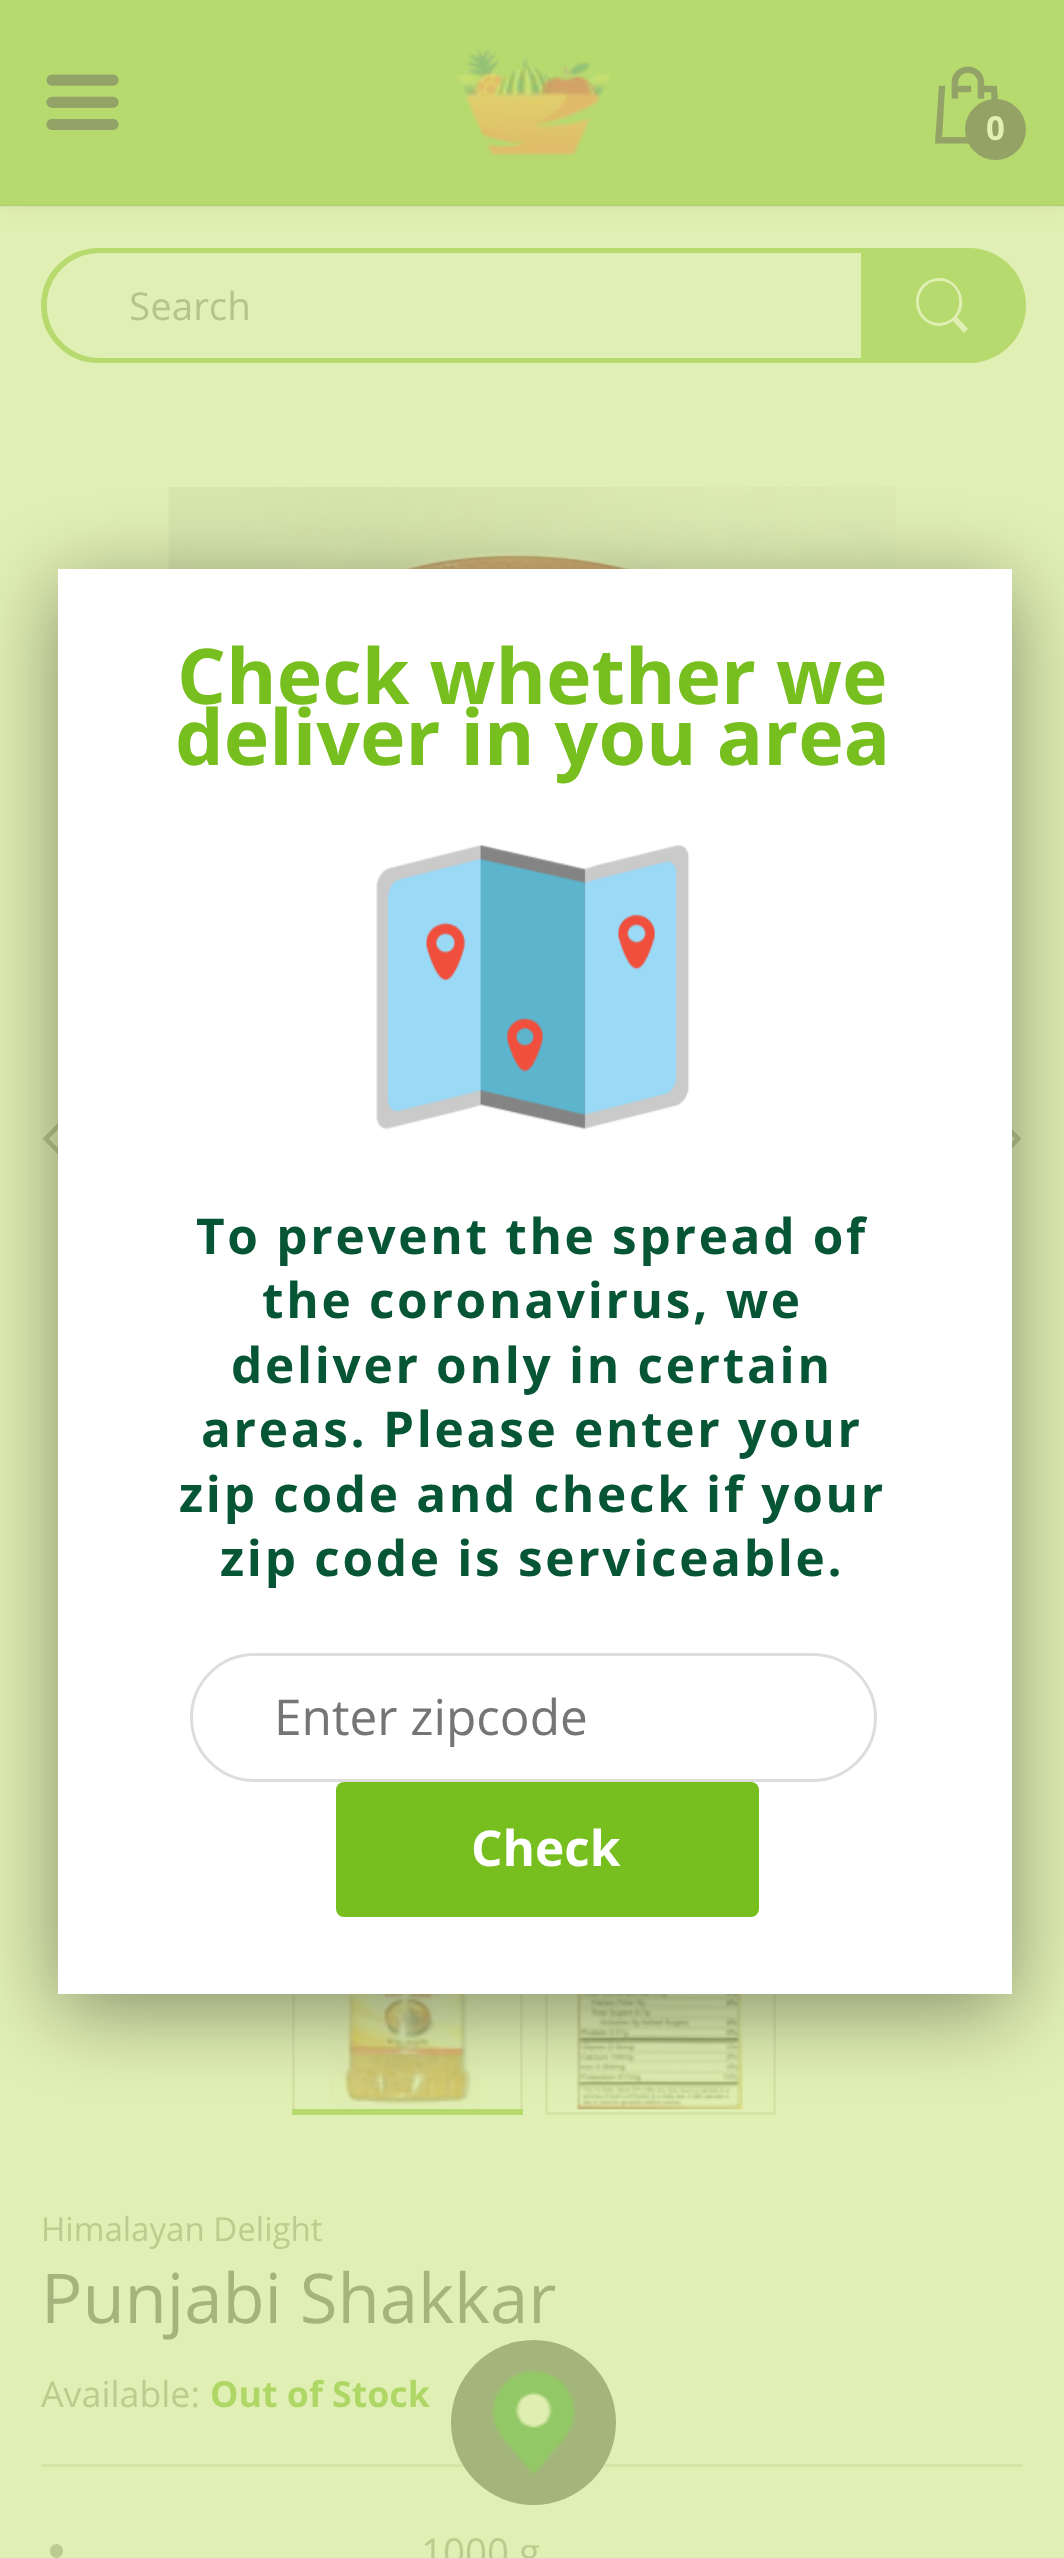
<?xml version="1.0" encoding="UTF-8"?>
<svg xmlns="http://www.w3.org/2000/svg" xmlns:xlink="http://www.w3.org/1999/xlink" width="1064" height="2558">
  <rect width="100%" height="100%" fill="#e0efb3" />
  <rect width="1064" height="206" fill="#d0dea2" fill-opacity="0.75" filter="blur(11px)" />
  <rect width="1064" height="206" fill="#b7da6f" />
  <rect y="204" width="1064" height="3" fill="#94a266" fill-opacity="0.1" />
  <image x="46" y="74" width="73" height="56" xlink:href="image1.png" />
  <image x="456" y="46" width="156" height="112" xlink:href="image2.png" />
  <image x="935" y="66" width="63" height="78" xlink:href="image3.png" />
  <circle cx="995.5" cy="129.5" r="30.5" fill="#94a266" />
  <rect x="44" y="251" width="976" height="109" rx="54.5" fill="none" stroke="#b7da6f" stroke-width="6" />
  <rect x="47" y="253" width="971" height="105" rx="52.5" fill="#e0efb3" />
  <path d="M 861 248 h 107.5 c 32 0 57.5 25.5 57.5 57.5 c 0 32 -25.5 57.5 -57.5 57.5 h -107.5 z" fill="#b7da6f" />
  <path d="M 930 280 c 23 -10 42 19 27 37 l 11 12 l -4 4 l -11 -12 c -4 3 -10 5 -15 5 c -25 -2 -30 -37 -8 -46 z m 8 1 c -4 0 -8 1 -11 4 c -16 12 -7 39 13 38 c 27 -2 25 -44 -2 -42 z" fill="#e0efb3" />
  <image x="168" y="487" width="728" height="82" xlink:href="image6.png" />
  <image x="42" y="1123" width="16" height="32" xlink:href="image7.png" />
  <image x="1012" y="1129" width="10" height="20" xlink:href="image8.png" />
  <rect x="293.5" y="1830.5" width="228" height="283" fill="none" stroke="#d6e4a8" stroke-width="3" />
  <image x="330" y="1994" width="151" height="115" xlink:href="image9.png" />
  <rect x="292" y="2109" width="231" height="6" fill="#b7da6f" />
  <rect x="546.5" y="1830.5" width="228" height="283" fill="none" stroke="#d6e4a8" stroke-width="3" />
  <image x="576" y="1994" width="167" height="116" xlink:href="image10.png" />
  <rect x="58" y="586" width="954" height="1424" fill="#000000" fill-opacity="0.4" filter="blur(41px)" />
  <rect x="58" y="569" width="954" height="1425" fill="#ffffff" />
  <image x="376" y="845" width="314" height="285" xlink:href="image4.png" />
  <rect x="191.5" y="1654.5" width="684" height="126" rx="63" fill="none" stroke="#dddddd" stroke-width="3" />
  <rect x="336" y="1782" width="423" height="135" rx="8" fill="#77be1f" />
  <rect x="41" y="2464" width="982" height="3" fill="#d6e4a8" />
  <circle cx="533.5" cy="2422.5" r="82.5" fill="#a4b57c" />
  <image x="491" y="2370" width="86" height="105" xlink:href="image5.png" />
  <rect x="50" y="2544" width="13" height="14" rx="6.5" fill="#bccb8f" />
  <text x="986" y="140" style="font-family: Open Sans; font-size: 33px; font-weight: bold; fill: #e0efb3">0</text>
  <text x="129" y="320" style="font-family: Open Sans; font-size: 38.5px; fill: #b4c58c">Search</text>
  <text x="177" y="704" style="font-family: Open Sans; font-size: 77px; font-weight: bold; fill: #77be1f">Check whether we</text>
  <text x="175" y="765" style="font-family: Open Sans; font-size: 77px; font-weight: bold; fill: #77be1f">deliver in you area</text>
  <text x="196" y="1254" style="font-family: Open Sans; font-size: 49.5px; font-weight: bold; letter-spacing: 2.7px; fill: #065535">To prevent the spread of</text>
  <text x="262" y="1318" style="font-family: Open Sans; font-size: 49.5px; font-weight: bold; letter-spacing: 2.7px; fill: #065535">the coronavirus, we</text>
  <text x="231" y="1383" style="font-family: Open Sans; font-size: 49.5px; font-weight: bold; letter-spacing: 2.7px; fill: #065535">deliver only in certain</text>
  <text x="201" y="1447" style="font-family: Open Sans; font-size: 49.5px; font-weight: bold; letter-spacing: 2.7px; fill: #065535">areas. Please enter your</text>
  <text x="179" y="1512" style="font-family: Open Sans; font-size: 49.5px; font-weight: bold; letter-spacing: 2.7px; fill: #065535">zip code and check if your</text>
  <text x="220" y="1576" style="font-family: Open Sans; font-size: 49.5px; font-weight: bold; letter-spacing: 2.7px; fill: #065535">zip code is serviceable.</text>
  <text x="274" y="1735" style="font-family: Open Sans; font-size: 49.5px; fill: #757575">Enter zipcode</text>
  <text x="471" y="1866" style="font-family: Open Sans; font-size: 49.5px; font-weight: bold; fill: #ffffff">Check</text>
  <text x="41" y="2241" style="font-family: Open Sans; font-size: 33px; fill: #bccb8f">Himalayan Delight</text>
  <text x="41" y="2323" style="font-family: Open Sans; font-size: 68.75px; fill: #a3b57c">Punjabi Shakkar</text>
  <text x="41" y="2407" style="font-family: Open Sans; font-size: 35.75px; fill: #bccb8f">Available:</text>
  <text x="210" y="2407" style="font-family: Open Sans; font-size: 35.75px; font-weight: bold; fill: #afd766">Out of Stock</text>
  <text x="421" y="2566" style="font-family: Open Sans; font-size: 38.5px; fill: #bccb8f">1000 g</text>
</svg>
